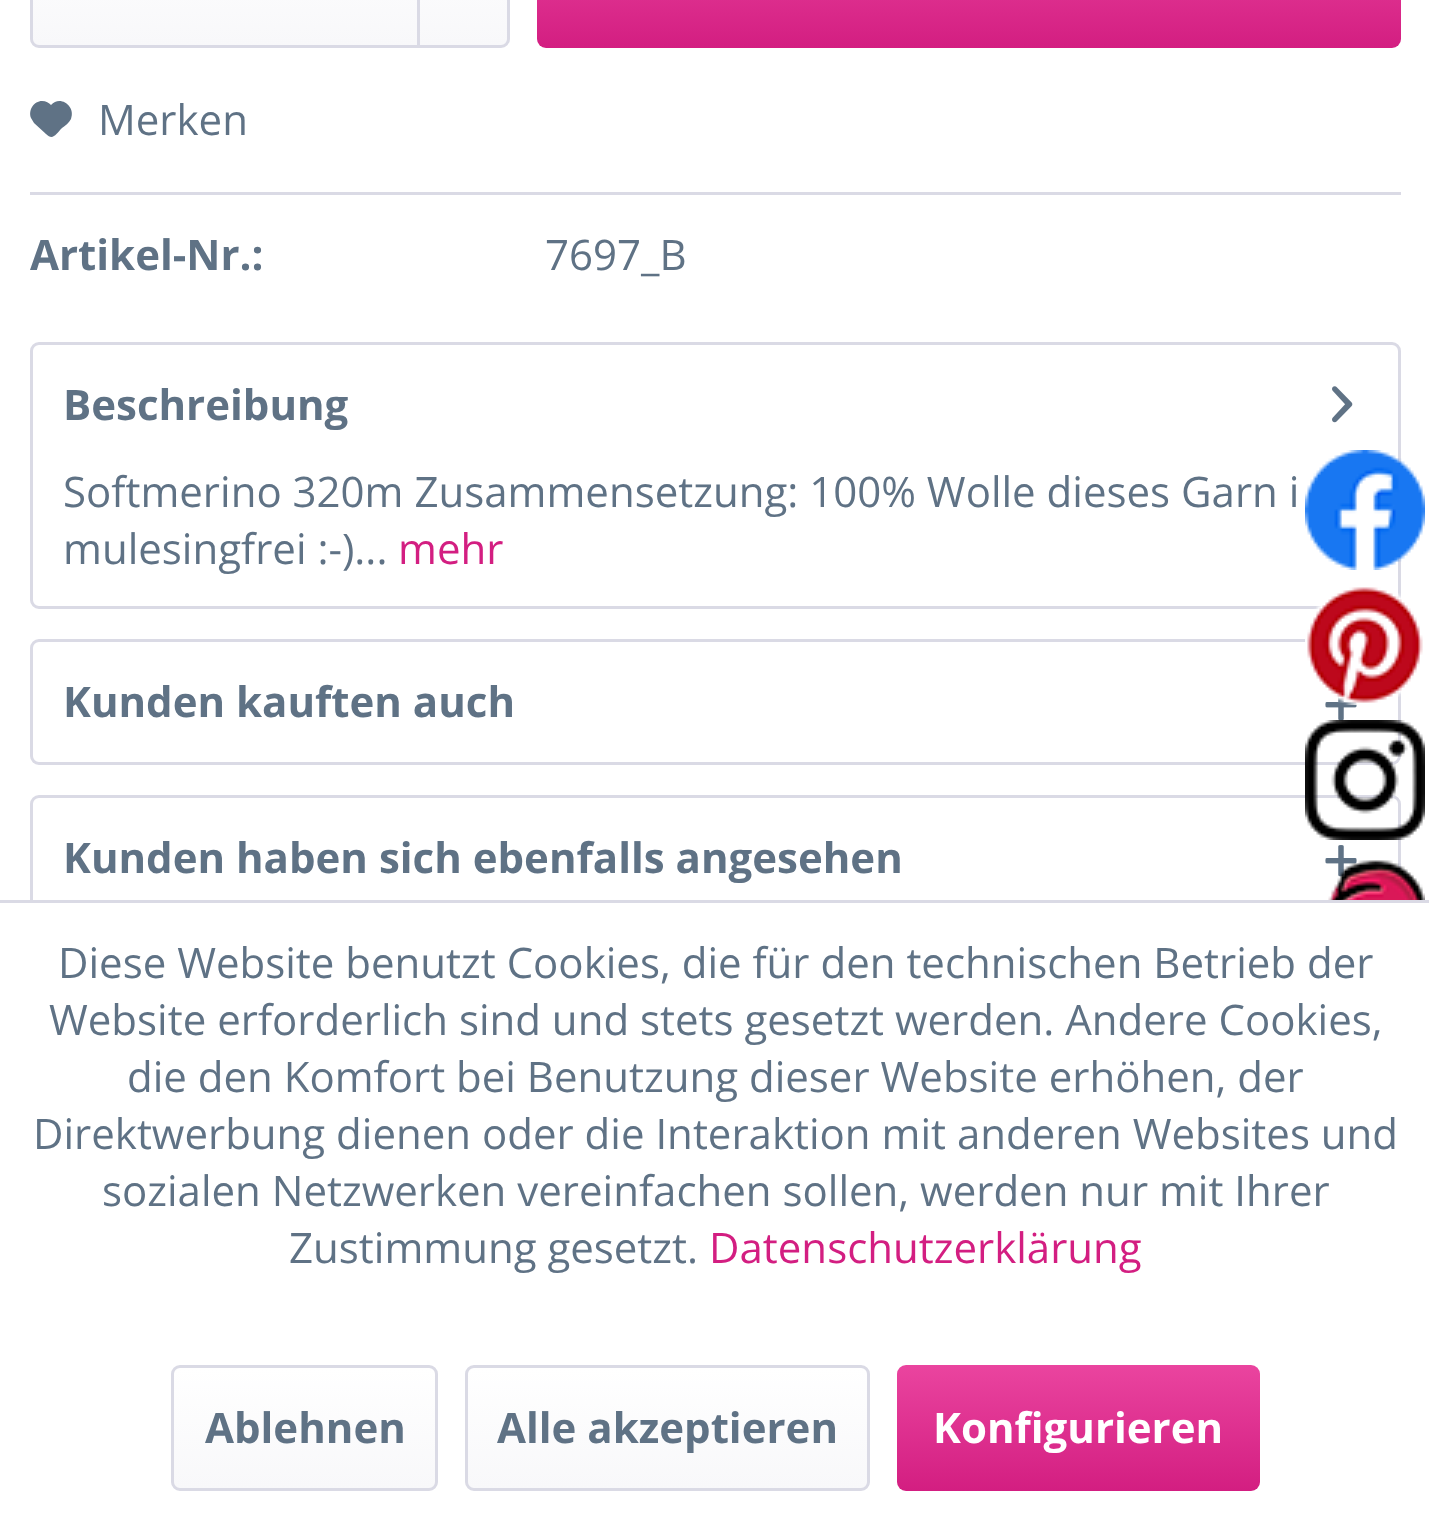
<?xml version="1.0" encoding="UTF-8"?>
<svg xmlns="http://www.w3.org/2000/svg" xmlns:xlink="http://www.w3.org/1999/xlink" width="1429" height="1519">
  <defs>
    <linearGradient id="g1" gradientUnits="userSpaceOnUse" x1="270" y1="-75" x2="270" y2="45"><stop offset="0" stop-color="#ffffff" /><stop offset="1" stop-color="#f8f8fa" /></linearGradient>
    <linearGradient id="g2" gradientUnits="userSpaceOnUse" x1="969" y1="-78" x2="969" y2="48"><stop offset="0" stop-color="#ea449f" /><stop offset="1" stop-color="#d31e81" /></linearGradient>
    <linearGradient id="g3" gradientUnits="userSpaceOnUse" x1="305" y1="1368" x2="305" y2="1488"><stop offset="0" stop-color="#ffffff" /><stop offset="1" stop-color="#f8f8fa" /></linearGradient>
    <linearGradient id="g4" gradientUnits="userSpaceOnUse" x1="668" y1="1368" x2="668" y2="1488"><stop offset="0" stop-color="#ffffff" /><stop offset="1" stop-color="#f8f8fa" /></linearGradient>
    <linearGradient id="g5" gradientUnits="userSpaceOnUse" x1="1079" y1="1365" x2="1079" y2="1491"><stop offset="0" stop-color="#ea449f" /><stop offset="1" stop-color="#d31e81" /></linearGradient>
  </defs>
  <rect width="100%" height="100%" fill="#ffffff" />
  <rect x="33" y="-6" width="474" height="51" rx="6" fill="url(#g1)" />
  <rect x="31.5" y="-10.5" width="477" height="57" rx="7.5" fill="none" stroke="#dadae5" stroke-width="3" />
  <rect x="417" width="3" height="45" fill="#dadae5" />
  <rect x="537" y="-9" width="864" height="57" rx="9" fill="url(#g2)" />
  <rect x="30" y="192" width="1371" height="3" fill="#dadae5" />
  <path d="M 42 101 c -8 0 -14 9 -11 17 l 3 5 l 12 11 c 7 7 10 0 16 -6 c 3 -2 7 -5 9 -9 c 5 -13 -11 -24 -20 -14 c -2 -2 -5 -4 -9 -4 z" fill="#5f7285" />
  <rect x="31.5" y="343.5" width="1368" height="264" rx="7.5" fill="none" stroke="#dadae5" stroke-width="3" />
  <image x="1332" y="386" width="21" height="37" xlink:href="image1.png" />
  <rect x="31.5" y="640.5" width="1368" height="123" rx="7.5" fill="none" stroke="#dadae5" stroke-width="3" />
  <image x="1325" y="695" width="32" height="26" xlink:href="image2.png" />
  <rect x="31.5" y="796.5" width="1368" height="123" rx="7.5" fill="none" stroke="#dadae5" stroke-width="3" />
  <image x="1325" y="845" width="32" height="32" xlink:href="image3.png" />
  <image x="1305" y="450" width="120" height="120" xlink:href="image4.png" />
  <image x="1305" y="587" width="118" height="118" xlink:href="image5.png" />
  <image x="1305" y="720" width="120" height="120" xlink:href="image6.png" />
  <image x="1328" y="860" width="97" height="40" xlink:href="image7.png" />
  <rect x="30" y="903" width="1371" height="18" fill="#ffffff" />
  <rect y="900" width="1429" height="3" fill="#dadae5" />
  <rect x="174" y="1368" width="261" height="120" rx="6" fill="url(#g3)" />
  <rect x="172.5" y="1366.5" width="264" height="123" rx="7.5" fill="none" stroke="#dadae5" stroke-width="3" />
  <rect x="468" y="1368" width="399" height="120" rx="6" fill="url(#g4)" />
  <rect x="466.5" y="1366.5" width="402" height="123" rx="7.5" fill="none" stroke="#dadae5" stroke-width="3" />
  <rect x="897" y="1365" width="363" height="126" rx="9" fill="url(#g5)" />
  <text x="98" y="135" style="font-family: Open Sans; font-size: 42px; fill: #5f7285">Merken</text>
  <text x="30" y="270" style="font-family: Open Sans; font-size: 42px; font-weight: bold; fill: #5f7285">Artikel-Nr.:</text>
  <text x="545" y="270" style="font-family: Open Sans; font-size: 42px; fill: #5f7285">7697_B</text>
  <text x="63" y="420" style="font-family: Open Sans; font-size: 42px; font-weight: bold; fill: #5f7285">Beschreibung</text>
  <text x="63" y="507" style="font-family: Open Sans; font-size: 42px; fill: #5f7285">Softmerino 320m Zusammensetzung: 100% Wolle dieses Garn i</text>
  <text x="63" y="564" style="font-family: Open Sans; font-size: 42px; fill: #5f7285">mulesingfrei :-)...</text>
  <text x="398" y="564" style="font-family: Open Sans; font-size: 42px; fill: #d31e81">mehr</text>
  <text x="63" y="717" style="font-family: Open Sans; font-size: 42px; font-weight: bold; fill: #5f7285">Kunden kauften auch</text>
  <text x="63" y="873" style="font-family: Open Sans; font-size: 42px; font-weight: bold; fill: #5f7285">Kunden haben sich ebenfalls angesehen</text>
  <text x="58" y="978" style="font-family: Open Sans; font-size: 42px; fill: #5f7285">Diese Website benutzt Cookies, die für den technischen Betrieb der</text>
  <text x="49" y="1035" style="font-family: Open Sans; font-size: 42px; fill: #5f7285">Website erforderlich sind und stets gesetzt werden. Andere Cookies,</text>
  <text x="127" y="1092" style="font-family: Open Sans; font-size: 42px; fill: #5f7285">die den Komfort bei Benutzung dieser Website erhöhen, der</text>
  <text x="33" y="1149" style="font-family: Open Sans; font-size: 42px; fill: #5f7285">Direktwerbung dienen oder die Interaktion mit anderen Websites und</text>
  <text x="102" y="1206" style="font-family: Open Sans; font-size: 42px; fill: #5f7285">sozialen Netzwerken vereinfachen sollen, werden nur mit Ihrer</text>
  <text x="289" y="1263" style="font-family: Open Sans; font-size: 42px; fill: #5f7285">Zustimmung gesetzt.</text>
  <text x="709" y="1263" style="font-family: Open Sans; font-size: 42px; fill: #d31e81">Datenschutzerklärung</text>
  <text x="205" y="1443" style="font-family: Open Sans; font-size: 42px; font-weight: bold; fill: #5f7285">Ablehnen</text>
  <text x="497" y="1443" style="font-family: Open Sans; font-size: 42px; font-weight: bold; fill: #5f7285">Alle akzeptieren</text>
  <text x="933" y="1443" style="font-family: Open Sans; font-size: 42px; font-weight: bold; fill: #ffffff">Konfigurieren</text>
</svg>
